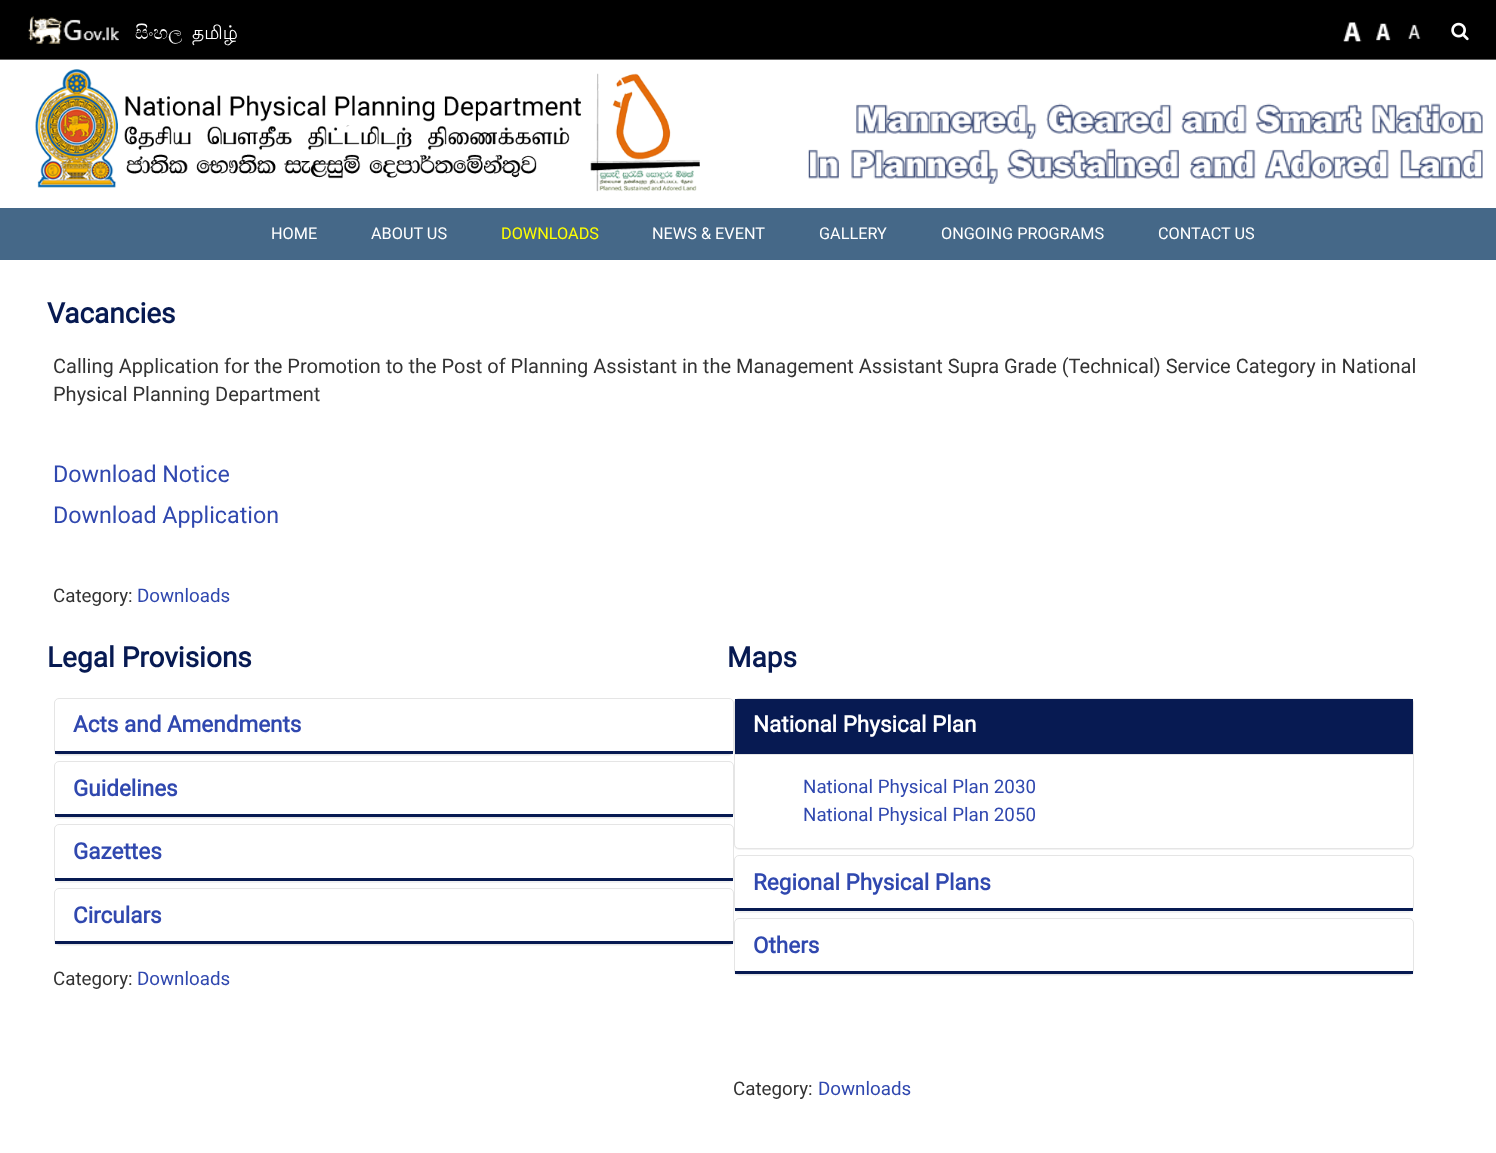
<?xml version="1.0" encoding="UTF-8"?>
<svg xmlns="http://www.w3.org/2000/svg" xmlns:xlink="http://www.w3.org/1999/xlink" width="1496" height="1153">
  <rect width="100%" height="100%" fill="#ffffff" />
  <rect width="1496" height="59" fill="#000000" />
  <rect y="59" width="1496" height="1" fill="#616161" />
  <image x="28" y="16" width="91" height="28" xlink:href="image1.png" />
  <image x="1343" y="22" width="19" height="20" xlink:href="image2.png" />
  <image x="1376" y="23" width="15" height="18" xlink:href="image3.png" />
  <image x="1408" y="24" width="13" height="15" xlink:href="image4.png" />
  <image x="1451" y="22" width="18" height="19" xlink:href="image5.png" />
  <image x="35" y="69" width="665" height="123" xlink:href="image6.png" />
  <image x="808" y="103" width="675" height="81" xlink:href="image7.png" />
  <rect y="208" width="1496" height="52" fill="#456888" />
  <rect x="54" y="699" width="680" height="57" rx="5" fill="#000000" fill-opacity="0.05" filter="blur(0.5px)" />
  <rect x="54.5" y="698.5" width="679" height="56" rx="4.5" fill="#ffffff" stroke="#e5e5e5" />
  <rect x="55" y="751" width="678" height="3" fill="#071a52" />
  <rect x="54" y="763" width="680" height="56" rx="5" fill="#000000" fill-opacity="0.05" filter="blur(0.5px)" />
  <rect x="54.5" y="761.5" width="679" height="56" rx="4.5" fill="#ffffff" stroke="#e5e5e5" />
  <rect x="55" y="814" width="678" height="3" fill="#071a52" />
  <rect x="54" y="825" width="680" height="58" rx="5" fill="#000000" fill-opacity="0.05" filter="blur(0.5px)" />
  <rect x="54.5" y="824.5" width="679" height="56" rx="4.5" fill="#ffffff" stroke="#e5e5e5" />
  <rect x="55" y="878" width="678" height="3" fill="#071a52" />
  <rect x="54" y="889" width="680" height="57" rx="5" fill="#000000" fill-opacity="0.05" filter="blur(0.5px)" />
  <rect x="54.5" y="888.5" width="679" height="56" rx="4.5" fill="#ffffff" stroke="#e5e5e5" />
  <rect x="55" y="941" width="678" height="3" fill="#071a52" />
  <rect x="734" y="699" width="680" height="151" rx="5" fill="#000000" fill-opacity="0.05" filter="blur(0.5px)" />
  <rect x="734.5" y="698.5" width="679" height="150" rx="4.5" fill="#ffffff" stroke="#e5e5e5" />
  <rect x="735" y="699" width="678" height="55" fill="#071a52" />
  <rect x="735" y="754" width="678" height="1" fill="#e5e5e5" />
  <rect x="734" y="856" width="680" height="57" rx="5" fill="#000000" fill-opacity="0.05" filter="blur(0.5px)" />
  <rect x="734.5" y="855.5" width="679" height="55" rx="4.5" fill="#ffffff" stroke="#e5e5e5" />
  <rect x="735" y="908" width="678" height="3" fill="#071a52" />
  <rect x="734" y="919" width="680" height="57" rx="5" fill="#000000" fill-opacity="0.05" filter="blur(0.5px)" />
  <rect x="734.5" y="918.5" width="679" height="56" rx="4.5" fill="#ffffff" stroke="#e5e5e5" />
  <rect x="735" y="971" width="678" height="3" fill="#071a52" />
  <text x="135" y="39" style="font-family: FreeSerif; font-size: 18.75px; fill: #ffffff">සිංහල</text>
  <text x="192" y="39" style="font-family: Lohit Tamil; font-size: 18.75px; fill: #ffffff">தமிழ்</text>
  <text x="271" y="239" style="font-family: Roboto; font-size: 16.25px; fill: #ffffff">HOME</text>
  <text x="371" y="239" style="font-family: Roboto; font-size: 16.25px; fill: #ffffff">ABOUT US</text>
  <text x="501" y="239" style="font-family: Roboto; font-size: 16.25px; fill: #ffff00">DOWNLOADS</text>
  <text x="652" y="239" style="font-family: Roboto; font-size: 16.25px; fill: #ffffff">NEWS &amp; EVENT</text>
  <text x="819" y="239" style="font-family: Roboto; font-size: 16.25px; fill: #ffffff">GALLERY</text>
  <text x="941" y="239" style="font-family: Roboto; font-size: 16.25px; fill: #ffffff">ONGOING PROGRAMS</text>
  <text x="1158" y="239" style="font-family: Roboto; font-size: 16.25px; fill: #ffffff">CONTACT US</text>
  <text x="47" y="323" style="font-family: Roboto; font-size: 28px; font-weight: bold; fill: #071a52">Vacancies</text>
  <text x="53" y="373" style="font-family: Roboto; font-size: 20px; fill: #333333">Calling Application for the Promotion to the Post of Planning Assistant in the Management Assistant Supra Grade (Technical) Service Category in National</text>
  <text x="53" y="401" style="font-family: Roboto; font-size: 20px; fill: #333333">Physical Planning Department</text>
  <text x="53" y="482" style="font-family: Roboto; font-size: 23.25px; fill: #3048af">Download Notice</text>
  <text x="53" y="523" style="font-family: Roboto; font-size: 23.25px; fill: #3048af">Download Application</text>
  <text x="53" y="602" style="font-family: Roboto; font-size: 18.75px; fill: #333333">Category:</text>
  <text x="137" y="602" style="font-family: Roboto; font-size: 18.75px; fill: #3048af">Downloads</text>
  <text x="47" y="667" style="font-family: Roboto; font-size: 28px; font-weight: bold; fill: #071a52">Legal Provisions</text>
  <text x="73" y="732" style="font-family: Roboto; font-size: 22.5px; font-weight: bold; fill: #3048af">Acts and Amendments</text>
  <text x="73" y="796" style="font-family: Roboto; font-size: 22.5px; font-weight: bold; fill: #3048af">Guidelines</text>
  <text x="73" y="859" style="font-family: Roboto; font-size: 22.5px; font-weight: bold; fill: #3048af">Gazettes</text>
  <text x="73" y="923" style="font-family: Roboto; font-size: 22.5px; font-weight: bold; fill: #3048af">Circulars</text>
  <text x="53" y="985" style="font-family: Roboto; font-size: 18.75px; fill: #333333">Category:</text>
  <text x="137" y="985" style="font-family: Roboto; font-size: 18.75px; fill: #3048af">Downloads</text>
  <text x="727" y="667" style="font-family: Roboto; font-size: 28px; font-weight: bold; fill: #071a52">Maps</text>
  <text x="753" y="732" style="font-family: Roboto; font-size: 22.5px; font-weight: bold; fill: #ffffff">National Physical Plan</text>
  <text x="803" y="793" style="font-family: Roboto; font-size: 18.75px; fill: #3048af">National Physical Plan 2030</text>
  <text x="803" y="821" style="font-family: Roboto; font-size: 18.75px; fill: #3048af">National Physical Plan 2050</text>
  <text x="753" y="890" style="font-family: Roboto; font-size: 22.5px; font-weight: bold; fill: #3048af">Regional Physical Plans</text>
  <text x="753" y="953" style="font-family: Roboto; font-size: 22.5px; font-weight: bold; fill: #3048af">Others</text>
  <text x="733" y="1095" style="font-family: Roboto; font-size: 18.75px; fill: #333333">Category:</text>
  <text x="818" y="1095" style="font-family: Roboto; font-size: 18.75px; fill: #3048af">Downloads</text>
</svg>
